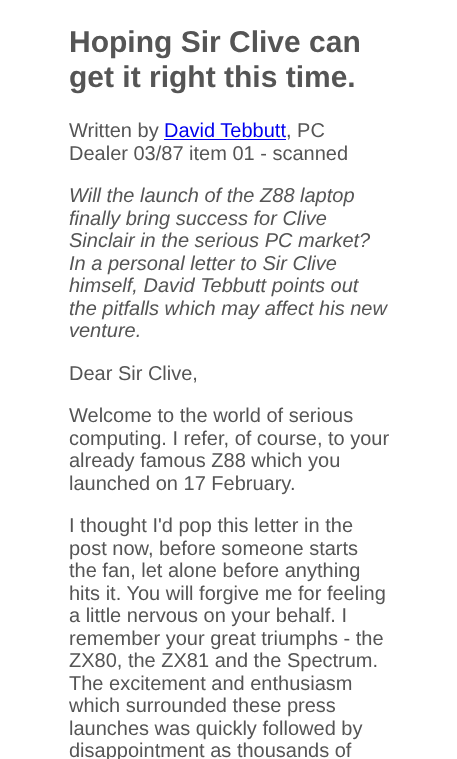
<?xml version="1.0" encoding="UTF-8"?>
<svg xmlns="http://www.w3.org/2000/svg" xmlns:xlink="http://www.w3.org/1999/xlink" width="457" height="759">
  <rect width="100%" height="100%" fill="#ffffff" />
  <rect x="164" y="139" width="122" height="1" fill="#0000ee" />
  <text x="69" y="52" style="font-family: Liberation Sans; font-size: 30px; font-weight: bold; fill: #555555">Hoping Sir Clive can</text>
  <text x="69" y="87" style="font-family: Liberation Sans; font-size: 30px; font-weight: bold; fill: #555555">get it right this time.</text>
  <text x="69" y="137" style="font-family: Liberation Sans; font-size: 20px; fill: #555555">Written by</text>
  <text x="164" y="137" style="font-family: Liberation Sans; font-size: 20px; fill: #0000ee">David Tebbutt</text>
  <text x="286" y="137" style="font-family: Liberation Sans; font-size: 20px; fill: #555555">, PC</text>
  <text x="69" y="160" style="font-family: Liberation Sans; font-size: 20px; fill: #555555">Dealer 03/87 item 01 - scanned</text>
  <text x="69" y="202" style="font-family: Liberation Sans; font-size: 20px; font-style: italic; fill: #555555">Will the launch of the Z88 laptop</text>
  <text x="69" y="225" style="font-family: Liberation Sans; font-size: 20px; font-style: italic; fill: #555555">finally bring success for Clive</text>
  <text x="69" y="247" style="font-family: Liberation Sans; font-size: 20px; font-style: italic; fill: #555555">Sinclair in the serious PC market?</text>
  <text x="69" y="270" style="font-family: Liberation Sans; font-size: 20px; font-style: italic; fill: #555555">In a personal letter to Sir Clive</text>
  <text x="69" y="292" style="font-family: Liberation Sans; font-size: 20px; font-style: italic; fill: #555555">himself, David Tebbutt points out</text>
  <text x="69" y="315" style="font-family: Liberation Sans; font-size: 20px; font-style: italic; fill: #555555">the pitfalls which may affect his new</text>
  <text x="69" y="337" style="font-family: Liberation Sans; font-size: 20px; font-style: italic; fill: #555555">venture.</text>
  <text x="69" y="380" style="font-family: Liberation Sans; font-size: 20px; fill: #555555">Dear Sir Clive,</text>
  <text x="69" y="422" style="font-family: Liberation Sans; font-size: 20px; fill: #555555">Welcome to the world of serious</text>
  <text x="69" y="445" style="font-family: Liberation Sans; font-size: 20px; fill: #555555">computing. I refer, of course, to your</text>
  <text x="69" y="467" style="font-family: Liberation Sans; font-size: 20px; fill: #555555">already famous Z88 which you</text>
  <text x="69" y="490" style="font-family: Liberation Sans; font-size: 20px; fill: #555555">launched on 17 February.</text>
  <text x="69" y="532" style="font-family: Liberation Sans; font-size: 20px; fill: #555555">I thought I'd pop this letter in the</text>
  <text x="69" y="555" style="font-family: Liberation Sans; font-size: 20px; fill: #555555">post now, before someone starts</text>
  <text x="69" y="577" style="font-family: Liberation Sans; font-size: 20px; fill: #555555">the fan, let alone before anything</text>
  <text x="69" y="600" style="font-family: Liberation Sans; font-size: 20px; fill: #555555">hits it. You will forgive me for feeling</text>
  <text x="69" y="622" style="font-family: Liberation Sans; font-size: 20px; fill: #555555">a little nervous on your behalf. I</text>
  <text x="69" y="645" style="font-family: Liberation Sans; font-size: 20px; fill: #555555">remember your great triumphs - the</text>
  <text x="69" y="667" style="font-family: Liberation Sans; font-size: 20px; fill: #555555">ZX80, the ZX81 and the Spectrum.</text>
  <text x="69" y="690" style="font-family: Liberation Sans; font-size: 20px; fill: #555555">The excitement and enthusiasm</text>
  <text x="69" y="712" style="font-family: Liberation Sans; font-size: 20px; fill: #555555">which surrounded these press</text>
  <text x="69" y="735" style="font-family: Liberation Sans; font-size: 20px; fill: #555555">launches was quickly followed by</text>
  <text x="69" y="757" style="font-family: Liberation Sans; font-size: 20px; fill: #555555">disappointment as thousands of</text>
</svg>
